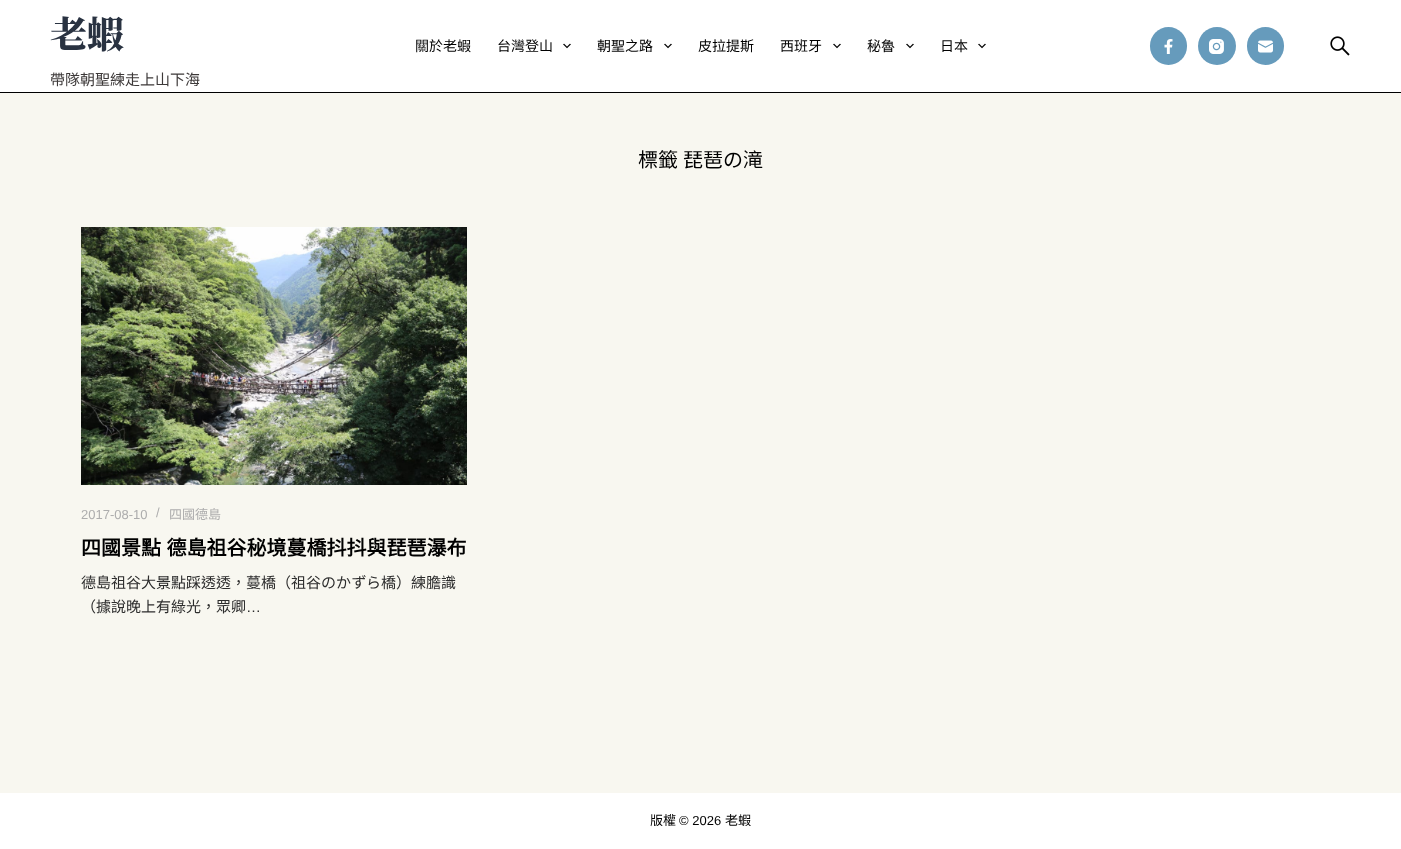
<?xml version="1.0" encoding="UTF-8"?>
<svg xmlns="http://www.w3.org/2000/svg" xmlns:xlink="http://www.w3.org/1999/xlink" width="1401" height="849">
  <style>*{font-kerning:none!important;font-variant-ligatures:none!important}</style>
  <rect width="100%" height="100%" fill="#f8f7f0" />
  <rect width="1401" height="92" fill="#ffffff" />
  <rect y="92" width="1401" height="1" fill="#000000" />
  <image x="563" y="43" width="8" height="6" xlink:href="image1.png" />
  <image x="664" y="43" width="8" height="6" xlink:href="image1.png" />
  <image x="833" y="43" width="8" height="6" xlink:href="image1.png" />
  <image x="906" y="43" width="8" height="6" xlink:href="image1.png" />
  <image x="978" y="43" width="8" height="6" xlink:href="image1.png" />
  <rect x="1150" y="27" width="37" height="38" rx="18.5" fill="#669bbc" />
  <image x="1164" y="39" width="9" height="15" xlink:href="image2.png" />
  <circle cx="1217" cy="46" r="19" fill="#669bbc" />
  <image x="1209" y="39" width="15" height="15" xlink:href="image3.png" />
  <rect x="1247" y="27" width="37" height="38" rx="18.5" fill="#669bbc" />
  <image x="1258" y="40" width="15" height="13" xlink:href="image4.png" />
  <image x="1330" y="36" width="20" height="20" xlink:href="image5.png" />
  <image x="81" y="227" width="386" height="258" xlink:href="image6.png" />
  <rect y="793" width="1401" height="56" fill="#ffffff" />
  <text x="50" y="48" style="font-family: Noto Serif TC; font-size: 37px; font-weight: 900; fill: #293241">老蝦</text>
  <text x="50" y="85" style="font-family: Noto Sans CJK TC; font-size: 15px; fill: #3d3939">帶隊朝聖練走上山下海</text>
  <text x="415" y="51" style="font-family: Noto Sans CJK TC; font-size: 14px; fill: #000000">關於老蝦</text>
  <text x="497" y="51" style="font-family: Noto Sans CJK TC; font-size: 14px; fill: #000000">台灣登山</text>
  <text x="597" y="51" style="font-family: Noto Sans CJK TC; font-size: 14px; fill: #000000">朝聖之路</text>
  <text x="698" y="51" style="font-family: Noto Sans CJK TC; font-size: 14px; fill: #000000">皮拉提斯</text>
  <text x="780" y="51" style="font-family: Noto Sans CJK TC; font-size: 14px; fill: #000000">西班牙</text>
  <text x="867" y="51" style="font-family: Noto Sans CJK TC; font-size: 14px; fill: #000000">秘魯</text>
  <text x="940" y="51" style="font-family: Noto Sans CJK TC; font-size: 14px; fill: #000000">日本</text>
  <text x="638" y="167" style="font-family: Noto Sans CJK TC; font-size: 20px; fill: #000000">標籤</text>
  <text x="683" y="167" style="font-family: Noto Sans CJK TC; font-size: 20px; fill: #000000">琵琶の滝</text>
  <text x="81" y="519" style="font-family: Liberation Sans; font-size: 13px; fill: #adadad">2017-08-10</text>
  <text x="156" y="517" style="font-family: Liberation Sans; font-size: 13px; fill: #adadad">/</text>
  <text x="169" y="519" style="font-family: Noto Sans CJK TC; font-size: 13px; fill: #adadad">四國德島</text>
  <text x="81" y="555" word-spacing="1" style="font-family: Noto Sans CJK TC; font-size: 20px; font-weight: bold; fill: #000000">四國景點 德島祖谷秘境蔓橋抖抖與琵琶瀑布</text>
  <text x="81" y="588" style="font-family: Noto Sans CJK TC; font-size: 15px; fill: #2c2c2c">德島祖谷大景點踩透透，蔓橋（祖谷のかずら橋）練膽識</text>
  <text x="81" y="612" style="font-family: Noto Sans CJK TC; font-size: 15px; fill: #2c2c2c">（據說晚上有綠光，眾卿</text>
  <text x="246" y="612" style="font-family: Liberation Sans; font-size: 15px; fill: #2c2c2c">…</text>
  <text x="650" y="825" style="font-family: Noto Sans CJK TC; font-size: 13px; fill: #000000">版權</text>
  <text x="679" y="825" style="font-family: Liberation Sans; font-size: 13px; fill: #000000">© 2026</text>
  <text x="725" y="825" style="font-family: Noto Sans CJK TC; font-size: 13px; fill: #000000">老蝦</text>
</svg>
